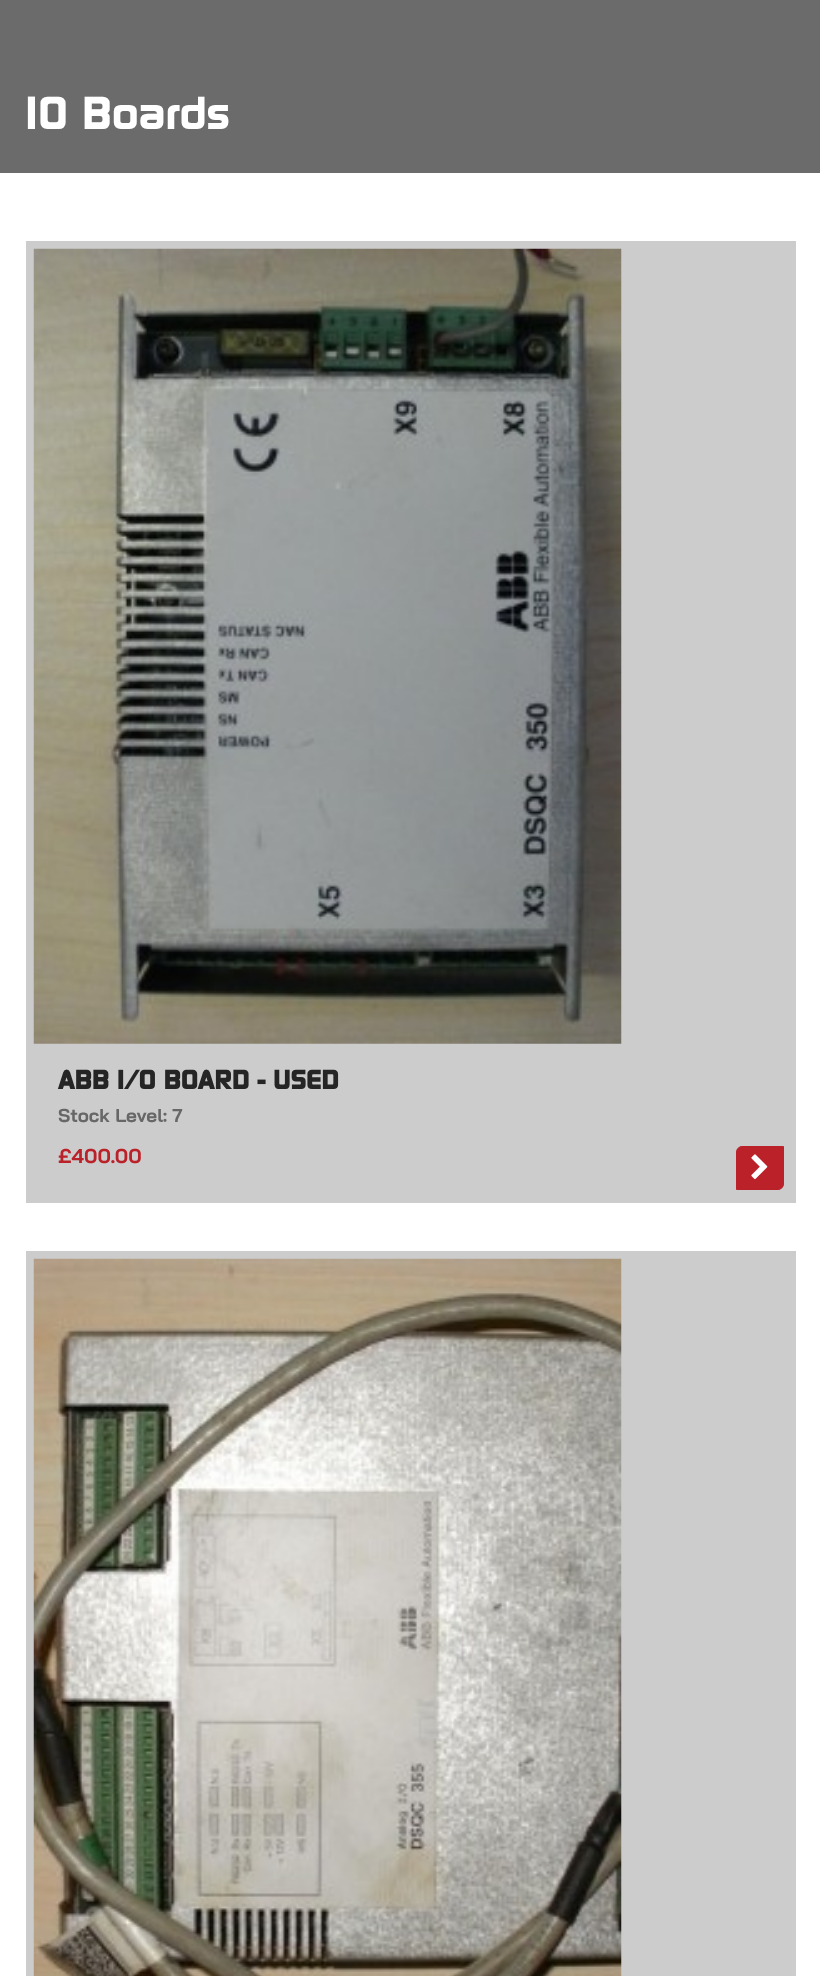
<?xml version="1.0" encoding="UTF-8"?>
<svg xmlns="http://www.w3.org/2000/svg" xmlns:xlink="http://www.w3.org/1999/xlink" width="820" height="1976">
  <rect width="100%" height="100%" fill="#ffffff" />
  <rect width="820" height="173" fill="#6b6b6b" />
  <rect x="26" y="241" width="770" height="962" fill="#cccccc" />
  <image x="33" y="248" width="589" height="796" xlink:href="image1.png" />
  <path d="M 742 1146.5 h 41.5 v 37.5 c 0 3 -2.5 5.5 -5.5 5.5 h -41.5 v -37.5 c 0 -3 2.5 -5.5 5.5 -5.5 z" fill="#bb2129" stroke="#bb2129" />
  <image x="751" y="1154" width="17" height="25" xlink:href="image2.png" />
  <rect x="26" y="1251" width="770" height="725" fill="#cccccc" />
  <image x="33" y="1258" width="589" height="718" xlink:href="image3.png" />
  <text x="25" y="129" style="font-family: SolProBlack; font-size: 41.5px; fill: #ffffff">IO Boards</text>
  <text x="58" y="1089" style="font-family: SolProBlack; font-size: 23.75px; font-weight: bold; fill: #252525">ABB I/O BOARD - USED</text>
  <text x="58" y="1122" style="font-family: Bai Jamjuree; font-size: 18.75px; font-weight: bold; fill: #676767">Stock Level: 7</text>
  <text x="58" y="1163" style="font-family: Bai Jamjuree; font-size: 20px; font-weight: bold; fill: #bb2129">£400.00</text>
</svg>
